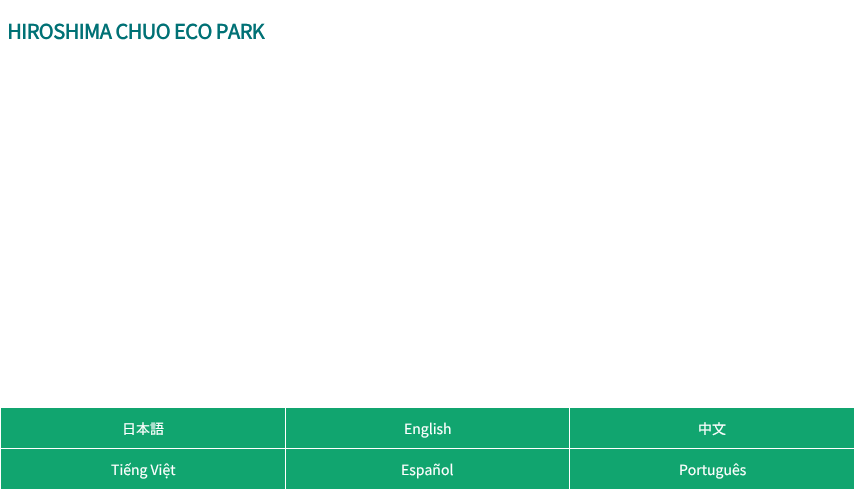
#include "include/core/SkBlurTypes.h"
#include "include/core/SkCanvas.h"
#include "include/core/SkData.h"
#include "include/core/SkFont.h"
#include "include/core/SkFontMgr.h"
#include "include/core/SkImage.h"
#include "include/core/SkMaskFilter.h"
#include "include/core/SkPaint.h"
#include "include/core/SkPathBuilder.h"
#include "include/core/SkTextBlob.h"
#include "include/effects/SkDashPathEffect.h"
#include "include/effects/SkGradientShader.h"
#include "include/utils/SkParsePath.h"

extern sk_sp<SkFontMgr> fontMgr;

void draw(SkCanvas* canvas) {
  SkPaint p;
  p.setAntiAlias(true);
  auto spacedText = [&](const char* s, float x, float y, const SkFont& font, const SkPaint& ink, float letter, float word) {
    std::vector<SkGlyphID> glyphs(font.countText(s, strlen(s), SkTextEncoding::kUTF8));
    std::vector<float> xs(glyphs.size());
    font.textToGlyphs(s, strlen(s), SkTextEncoding::kUTF8, glyphs);
    font.getXPos(glyphs, xs, x);
    float extra = 0;
    for (size_t i = 0; i < glyphs.size(); i++) {
      xs[i] += extra;
      extra += letter + word * (glyphs[i] == font.unicharToGlyph(' '));
    }
    canvas->drawTextBlob(SkTextBlob::MakeFromPosHGlyphs(glyphs, xs, y, font), 0, 0, ink);
  };
  canvas->clear(SK_ColorWHITE);
  p.setColor(SkColorSetRGB(17, 165, 111));
  canvas->drawRect(SkRect::MakeLTRB(1, 408, 285, 448), p);
  canvas->drawRect(SkRect::MakeLTRB(286, 408, 569, 448), p);
  canvas->drawRect(SkRect::MakeLTRB(570, 408, 854, 448), p);
  canvas->drawRect(SkRect::MakeLTRB(1, 449, 285, 489), p);
  canvas->drawRect(SkRect::MakeLTRB(286, 449, 569, 489), p);
  canvas->drawRect(SkRect::MakeLTRB(570, 449, 854, 489), p);
  SkFont font1(fontMgr->matchFamilyStyle("Noto Sans JP", SkFontStyle::Bold()), 20);
  font1.setSubpixel(true);
  p.setColor(SkColorSetRGB(0, 113, 117));
  spacedText("HIROSHIMA CHUO ECO PARK", 7, 39, font1, p, -0.5f, 0);
  SkFont font2(fontMgr->matchFamilyStyle("Noto Sans JP", SkFontStyle(100, SkFontStyle::kNormal_Width, SkFontStyle::kUpright_Slant)), 14);
  font2.setSubpixel(true);
  p.setColor(SK_ColorWHITE);
  canvas->drawString("日本語", 122, 434, font2, p);
  canvas->drawString("English", 404, 434, font2, p);
  canvas->drawString("中文", 698, 434, font2, p);
  canvas->drawString("Tiếng Việt", 111, 475, font2, p);
  canvas->drawString("Español", 401, 475, font2, p);
  canvas->drawString("Português", 679, 475, font2, p);
}
